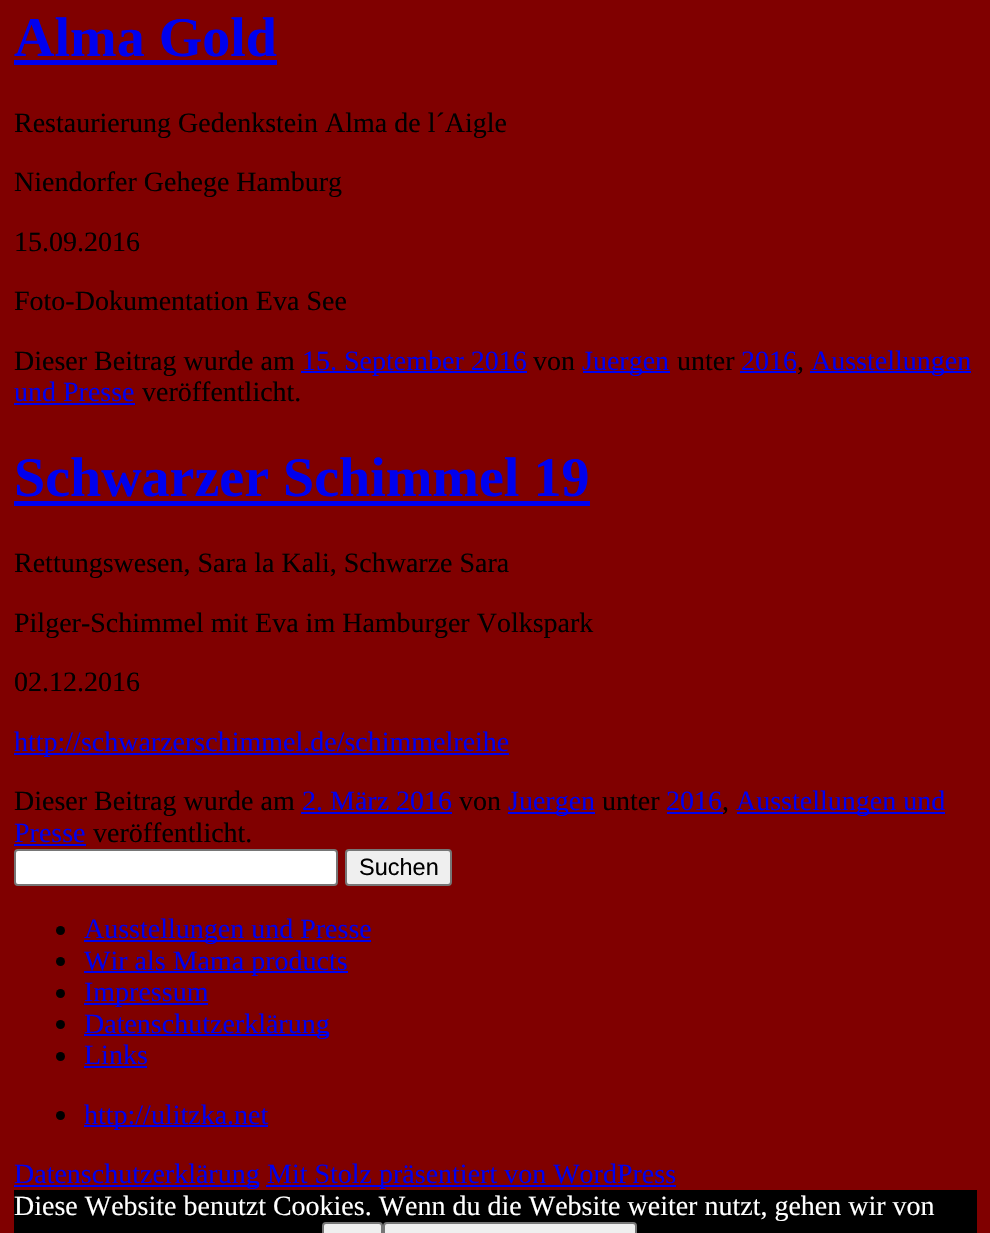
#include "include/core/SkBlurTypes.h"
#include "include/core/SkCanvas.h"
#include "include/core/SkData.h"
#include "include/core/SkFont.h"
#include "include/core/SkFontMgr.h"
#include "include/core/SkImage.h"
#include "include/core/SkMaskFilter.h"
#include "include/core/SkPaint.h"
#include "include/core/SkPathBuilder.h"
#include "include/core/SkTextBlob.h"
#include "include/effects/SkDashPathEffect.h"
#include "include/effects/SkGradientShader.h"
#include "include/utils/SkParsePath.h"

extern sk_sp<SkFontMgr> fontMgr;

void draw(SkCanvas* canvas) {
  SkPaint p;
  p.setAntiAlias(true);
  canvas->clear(SkColorSetRGB(128, 0, 0));
  p.setColor(SkColorSetRGB(0, 0, 238));
  canvas->drawRect(SkRect::MakeLTRB(14, 60, 277, 65), p);
  canvas->drawRect(SkRect::MakeLTRB(301, 371, 527, 373), p);
  canvas->drawRect(SkRect::MakeLTRB(583, 371, 670, 373), p);
  canvas->drawRect(SkRect::MakeLTRB(740, 371, 796, 373), p);
  canvas->drawRect(SkRect::MakeLTRB(810, 371, 971, 373), p);
  canvas->drawRect(SkRect::MakeLTRB(14, 403, 135, 405), p);
  canvas->drawRect(SkRect::MakeLTRB(14, 501, 590, 506), p);
  canvas->drawRect(SkRect::MakeLTRB(14, 753, 509, 755), p);
  canvas->drawRect(SkRect::MakeLTRB(301, 812, 452, 814), p);
  canvas->drawRect(SkRect::MakeLTRB(508, 812, 595, 814), p);
  canvas->drawRect(SkRect::MakeLTRB(667, 812, 723, 814), p);
  canvas->drawRect(SkRect::MakeLTRB(737, 812, 945, 814), p);
  canvas->drawRect(SkRect::MakeLTRB(14, 844, 86, 846), p);
  p.setColor(SK_ColorWHITE);
  canvas->drawRoundRect(SkRect::MakeLTRB(15, 850, 337, 885), 3, 3, p);
  p.setStyle(SkPaint::kStroke_Style);
  p.setStrokeWidth(2);
  p.setColor(SkColorSetRGB(118, 118, 118));
  canvas->drawRoundRect(SkRect::MakeLTRB(15, 850, 337, 885), 3, 3, p);
  p.setStyle(SkPaint::kFill_Style);
  p.setColor(SkColorSetRGB(239, 239, 239));
  canvas->drawRoundRect(SkRect::MakeLTRB(346, 850, 451, 885), 3, 3, p);
  p.setStyle(SkPaint::kStroke_Style);
  p.setColor(SkColorSetRGB(118, 118, 118));
  canvas->drawRoundRect(SkRect::MakeLTRB(346, 850, 451, 885), 3, 3, p);
  p.setStyle(SkPaint::kFill_Style);
  p.setColor(SK_ColorBLACK);
  canvas->drawCircle(60.5f, 930.5f, 4.5f, p);
  p.setColor(SkColorSetRGB(0, 0, 238));
  canvas->drawRect(SkRect::MakeLTRB(84, 940, 371, 942), p);
  p.setColor(SK_ColorBLACK);
  canvas->drawCircle(60.5f, 961.5f, 4.5f, p);
  p.setColor(SkColorSetRGB(0, 0, 238));
  canvas->drawRect(SkRect::MakeLTRB(84, 971, 348, 973), p);
  p.setColor(SK_ColorBLACK);
  canvas->drawCircle(60.5f, 993.5f, 4.5f, p);
  p.setColor(SkColorSetRGB(0, 0, 238));
  canvas->drawRect(SkRect::MakeLTRB(84, 1003, 208, 1005), p);
  p.setColor(SK_ColorBLACK);
  canvas->drawCircle(60.5f, 1024.5f, 4.5f, p);
  p.setColor(SkColorSetRGB(0, 0, 238));
  canvas->drawRect(SkRect::MakeLTRB(84, 1034, 329, 1036), p);
  p.setColor(SK_ColorBLACK);
  canvas->drawCircle(60.5f, 1056.5f, 4.5f, p);
  p.setColor(SkColorSetRGB(0, 0, 238));
  canvas->drawRect(SkRect::MakeLTRB(84, 1066, 147, 1068), p);
  p.setColor(SK_ColorBLACK);
  canvas->drawCircle(60.5f, 1115.5f, 4.5f, p);
  p.setColor(SkColorSetRGB(0, 0, 238));
  canvas->drawRect(SkRect::MakeLTRB(84, 1125, 268, 1127), p);
  canvas->drawRect(SkRect::MakeLTRB(14, 1185, 259, 1187), p);
  canvas->drawRect(SkRect::MakeLTRB(266, 1185, 676, 1187), p);
  p.setColor(SK_ColorBLACK);
  canvas->drawRect(SkRect::MakeLTRB(14, 1190, 977, 1233), p);
  p.setColor(SkColorSetRGB(239, 239, 239));
  canvas->drawRoundRect(SkRect::MakeLTRB(323, 1223, 382, 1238), 3, 3, p);
  p.setStyle(SkPaint::kStroke_Style);
  p.setColor(SkColorSetRGB(118, 118, 118));
  canvas->drawRoundRect(SkRect::MakeLTRB(323, 1223, 382, 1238), 3, 3, p);
  p.setStyle(SkPaint::kFill_Style);
  p.setColor(SkColorSetRGB(239, 239, 239));
  canvas->drawRoundRect(SkRect::MakeLTRB(384, 1223, 636, 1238), 3, 3, p);
  p.setStyle(SkPaint::kStroke_Style);
  p.setColor(SkColorSetRGB(118, 118, 118));
  canvas->drawRoundRect(SkRect::MakeLTRB(384, 1223, 636, 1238), 3, 3, p);
  SkFont font1(fontMgr->matchFamilyStyle("Liberation Serif", SkFontStyle::Bold()), 56);
  font1.setSubpixel(true);
  p.setStyle(SkPaint::kFill_Style);
  p.setColor(SkColorSetRGB(0, 0, 238));
  canvas->drawString("Alma Gold", 14, 56, font1, p);
  SkFont font2(fontMgr->matchFamilyStyle("Liberation Serif", SkFontStyle::Normal()), 28);
  font2.setSubpixel(true);
  p.setColor(SK_ColorBLACK);
  canvas->drawString("Restaurierung Gedenkstein Alma de l´Aigle", 14, 132, font2, p);
  canvas->drawString("Niendorfer Gehege Hamburg", 14, 191, font2, p);
  canvas->drawString("15.09.2016", 14, 251, font2, p);
  canvas->drawString("Foto-Dokumentation Eva See", 14, 310, font2, p);
  canvas->drawString("Dieser Beitrag wurde am", 14, 370, font2, p);
  p.setColor(SkColorSetRGB(0, 0, 238));
  canvas->drawString("15. September 2016", 302, 370, font2, p);
  p.setColor(SK_ColorBLACK);
  canvas->drawString("von", 533, 370, font2, p);
  p.setColor(SkColorSetRGB(0, 0, 238));
  canvas->drawString("Juergen", 582, 370, font2, p);
  p.setColor(SK_ColorBLACK);
  canvas->drawString("unter", 677, 370, font2, p);
  p.setColor(SkColorSetRGB(0, 0, 238));
  canvas->drawString("2016", 741, 370, font2, p);
  p.setColor(SK_ColorBLACK);
  canvas->drawString(",", 797, 370, font2, p);
  p.setColor(SkColorSetRGB(0, 0, 238));
  canvas->drawString("Ausstellungen", 811, 370, font2, p);
  canvas->drawString("und Presse", 14, 401, font2, p);
  p.setColor(SK_ColorBLACK);
  canvas->drawString("veröffentlicht.", 142, 401, font2, p);
  p.setColor(SkColorSetRGB(0, 0, 238));
  canvas->drawString("Schwarzer Schimmel 19", 14, 496, font1, p);
  p.setColor(SK_ColorBLACK);
  canvas->drawString("Rettungswesen, Sara la Kali, Schwarze Sara", 14, 572, font2, p);
  canvas->drawString("Pilger-Schimmel mit Eva im Hamburger Volkspark", 14, 632, font2, p);
  canvas->drawString("02.12.2016", 14, 691, font2, p);
  p.setColor(SkColorSetRGB(0, 0, 238));
  canvas->drawString("http://schwarzerschimmel.de/schimmelreihe", 14, 751, font2, p);
  p.setColor(SK_ColorBLACK);
  canvas->drawString("Dieser Beitrag wurde am", 14, 810, font2, p);
  p.setColor(SkColorSetRGB(0, 0, 238));
  canvas->drawString("2. März 2016", 302, 810, font2, p);
  p.setColor(SK_ColorBLACK);
  canvas->drawString("von", 459, 810, font2, p);
  p.setColor(SkColorSetRGB(0, 0, 238));
  canvas->drawString("Juergen", 508, 810, font2, p);
  p.setColor(SK_ColorBLACK);
  canvas->drawString("unter", 602, 810, font2, p);
  p.setColor(SkColorSetRGB(0, 0, 238));
  canvas->drawString("2016", 666, 810, font2, p);
  p.setColor(SK_ColorBLACK);
  canvas->drawString(",", 722, 810, font2, p);
  p.setColor(SkColorSetRGB(0, 0, 238));
  canvas->drawString("Ausstellungen und", 736, 810, font2, p);
  canvas->drawString("Presse", 14, 842, font2, p);
  p.setColor(SK_ColorBLACK);
  canvas->drawString("veröffentlicht.", 93, 842, font2, p);
  SkFont font3(fontMgr->matchFamilyStyle("Liberation Sans", SkFontStyle::Normal()), 23.5f);
  font3.setSubpixel(true);
  canvas->drawString("Suchen", 359, 875, font3, p);
  p.setColor(SkColorSetRGB(0, 0, 238));
  canvas->drawString("Ausstellungen und Presse", 84, 938, font2, p);
  canvas->drawString("Wir als Mama products", 84, 970, font2, p);
  canvas->drawString("Impressum", 84, 1001, font2, p);
  canvas->drawString("Datenschutzerklärung", 84, 1033, font2, p);
  canvas->drawString("Links", 84, 1064, font2, p);
  canvas->drawString("http://ulitzka.net", 84, 1124, font2, p);
  canvas->drawString("Datenschutzerklärung", 14, 1183, font2, p);
  canvas->drawString("Mit Stolz präsentiert von WordPress", 267, 1183, font2, p);
  p.setColor(SK_ColorWHITE);
  canvas->drawString("Diese Website benutzt Cookies. Wenn du die Website weiter nutzt, gehen wir von", 14, 1215, font2, p);
}
